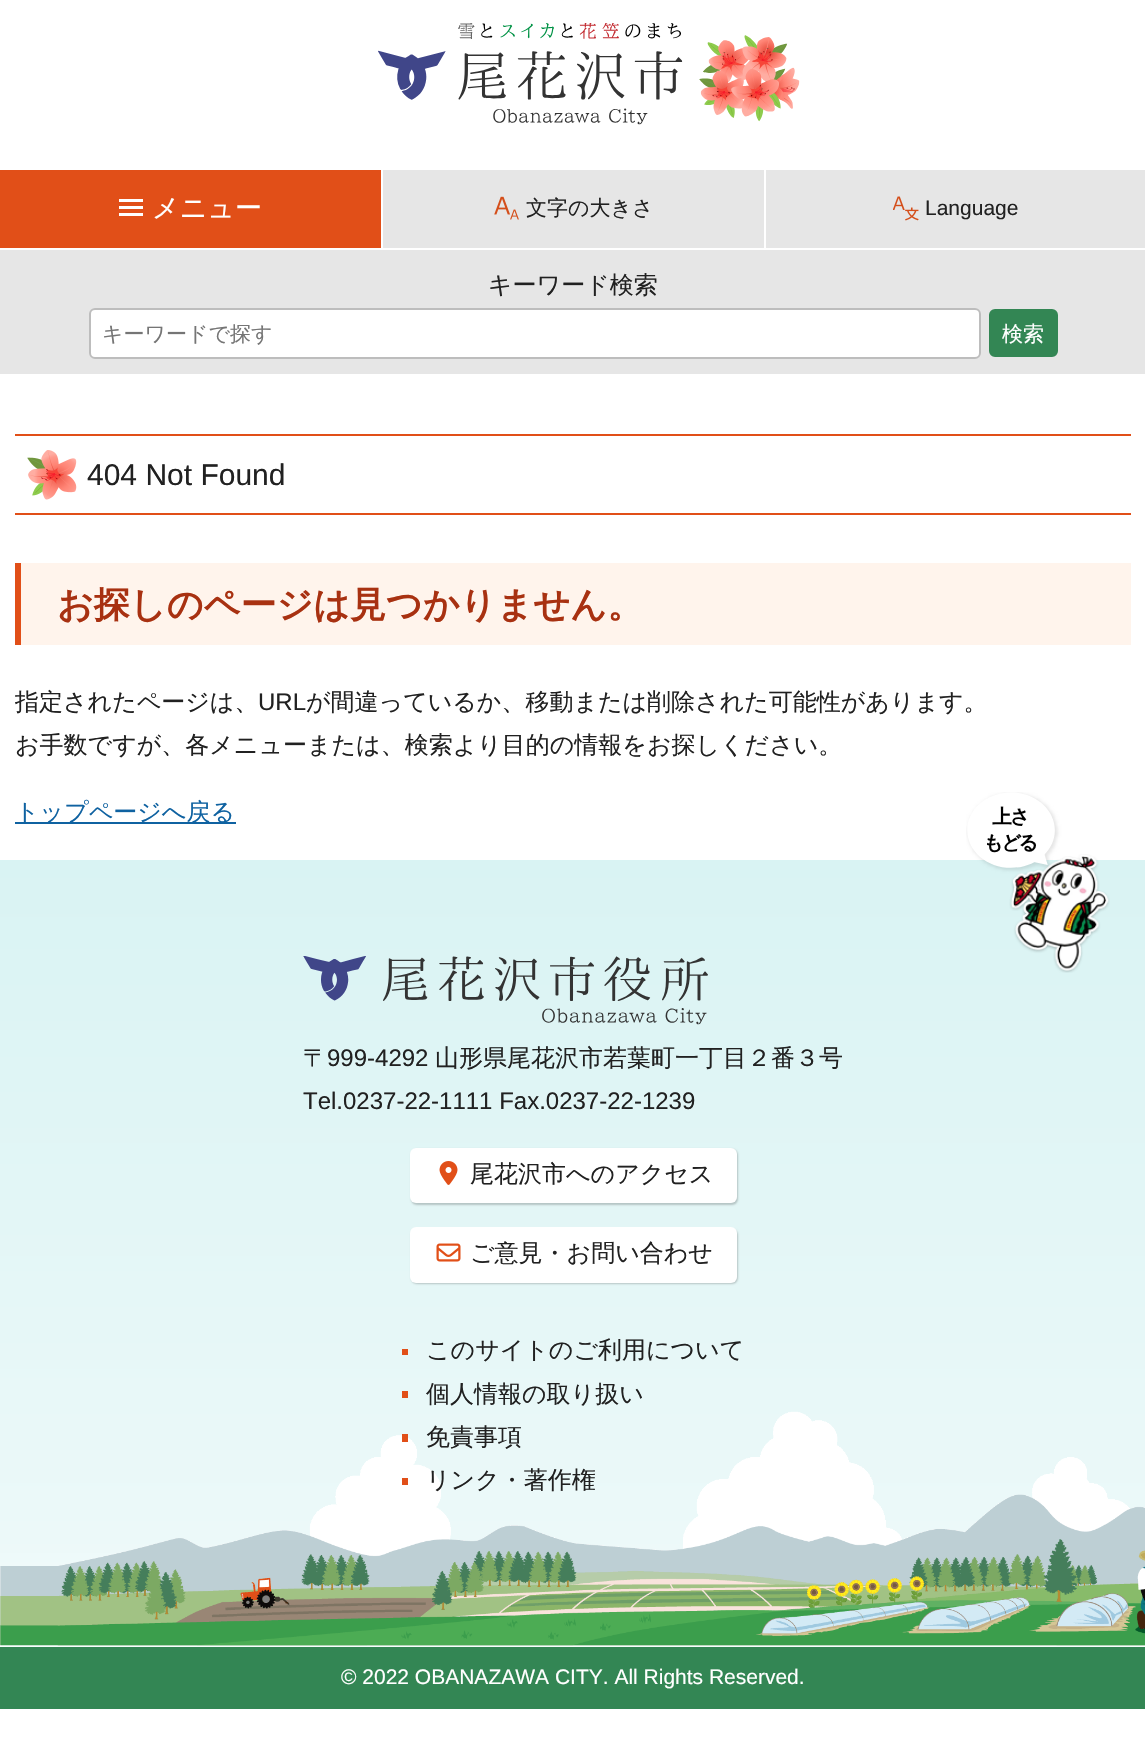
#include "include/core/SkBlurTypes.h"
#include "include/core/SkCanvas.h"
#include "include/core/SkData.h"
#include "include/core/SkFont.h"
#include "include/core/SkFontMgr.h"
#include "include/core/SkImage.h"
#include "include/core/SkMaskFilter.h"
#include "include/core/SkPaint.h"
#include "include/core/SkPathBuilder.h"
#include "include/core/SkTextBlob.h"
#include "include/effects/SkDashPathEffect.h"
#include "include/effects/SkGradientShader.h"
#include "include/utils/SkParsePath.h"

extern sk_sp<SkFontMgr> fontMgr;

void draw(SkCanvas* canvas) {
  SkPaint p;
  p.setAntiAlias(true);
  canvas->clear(SK_ColorWHITE);
  canvas->drawImageRect(SkImages::DeferredFromEncodedData(SkData::MakeFromFileName("images/1.png")), SkRect::MakeLTRB(378, 23, 800, 125), SkSamplingOptions());
  p.setColor(SkColorSetRGB(230, 230, 230));
  canvas->drawRect(SkRect::MakeLTRB(0, 170, 1145, 374), p);
  p.setColor(SkColorSetRGB(225, 79, 24));
  canvas->drawRect(SkRect::MakeLTRB(0, 170, 381, 248), p);
  p.setColor(SK_ColorWHITE);
  canvas->drawRect(SkRect::MakeLTRB(119, 199, 143, 202), p);
  canvas->drawRect(SkRect::MakeLTRB(119, 206, 143, 209), p);
  canvas->drawRect(SkRect::MakeLTRB(119, 213, 143, 216), p);
  canvas->drawRect(SkRect::MakeLTRB(381, 170, 383, 248), p);
  canvas->drawImageRect(SkImages::DeferredFromEncodedData(SkData::MakeFromFileName("images/2.png")), SkRect::MakeLTRB(494, 196, 519, 220), SkSamplingOptions());
  canvas->drawRect(SkRect::MakeLTRB(764, 170, 766, 248), p);
  canvas->drawImageRect(SkImages::DeferredFromEncodedData(SkData::MakeFromFileName("images/3.png")), SkRect::MakeLTRB(893, 196, 919, 221), SkSamplingOptions());
  canvas->drawRect(SkRect::MakeLTRB(0, 248, 1145, 250), p);
  canvas->drawRoundRect(SkRect::MakeLTRB(89, 308, 981, 359), 6, 6, p);
  p.setStyle(SkPaint::kStroke_Style);
  p.setStrokeWidth(2);
  p.setColor(SkColorSetARGB(66, 0, 0, 0));
  canvas->drawRoundRect(SkRect::MakeLTRB(90, 309, 980, 358), 5, 5, p);
  p.setStyle(SkPaint::kFill_Style);
  p.setColor(SkColorSetRGB(51, 134, 84));
  canvas->drawRoundRect(SkRect::MakeLTRB(990, 310, 1057, 356), 5, 5, p);
  p.setStyle(SkPaint::kStroke_Style);
  canvas->drawRoundRect(SkRect::MakeLTRB(990, 310, 1057, 356), 5, 5, p);
  canvas->drawImageRect(SkImages::DeferredFromEncodedData(SkData::MakeFromFileName("images/4.png")), SkRect::MakeLTRB(27, 450, 77, 500), SkSamplingOptions());
  p.setStyle(SkPaint::kFill_Style);
  p.setColor(SkColorSetRGB(225, 79, 24));
  canvas->drawRect(SkRect::MakeLTRB(15, 434, 1131, 436), p);
  canvas->drawRect(SkRect::MakeLTRB(15, 513, 1131, 515), p);
  p.setColor(SkColorSetRGB(255, 244, 236));
  canvas->drawRect(SkRect::MakeLTRB(21, 563, 1131, 645), p);
  p.setColor(SkColorSetRGB(225, 79, 24));
  canvas->drawRect(SkRect::MakeLTRB(15, 563, 21, 645), p);
  p.setColor(SkColorSetRGB(15, 98, 161));
  canvas->drawRect(SkRect::MakeLTRB(15, 822, 236, 824), p);
  {
    const SkColor colors[] = {SkColorSetRGB(217, 243, 243), SkColorSetRGB(236, 249, 249), SK_ColorWHITE};
    const float stops[] = {0, 0.8f, 1};
    const SkPoint ends[] = {{573, 860}, {573, 1709}};
    p.setShader(SkGradientShader::MakeLinear(ends, colors, stops, 3, SkTileMode::kClamp));
    p.setAlpha(255);
  }
  canvas->drawRect(SkRect::MakeLTRB(0, 860, 1145, 1647), p);
  canvas->drawImageRect(SkImages::DeferredFromEncodedData(SkData::MakeFromFileName("images/5.png")), SkRect::MakeLTRB(966, 792, 1110, 973), SkSamplingOptions());
  canvas->drawImageRect(SkImages::DeferredFromEncodedData(SkData::MakeFromFileName("images/6.png")), SkRect::MakeLTRB(0, 1411, 1145, 1646), SkSamplingOptions());
  canvas->drawImageRect(SkImages::DeferredFromEncodedData(SkData::MakeFromFileName("images/7.png")), SkRect::MakeLTRB(303, 956, 708, 1025), SkSamplingOptions());
  p.setShader(nullptr);
  p.setColor(SkColorSetARGB(51, 0, 0, 0));
  p.setMaskFilter(SkMaskFilter::MakeBlur(kNormal_SkBlurStyle, 1));
  canvas->drawRoundRect(SkRect::MakeLTRB(411, 1149, 738, 1205), 6, 6, p);
  p.setMaskFilter(nullptr);
  p.setColor(SK_ColorWHITE);
  canvas->drawRoundRect(SkRect::MakeLTRB(410, 1148, 737, 1203), 6, 6, p);
  canvas->drawImageRect(SkImages::DeferredFromEncodedData(SkData::MakeFromFileName("images/8.png")), SkRect::MakeLTRB(439, 1161, 458, 1185), SkSamplingOptions());
  p.setColor(SkColorSetARGB(51, 0, 0, 0));
  p.setMaskFilter(SkMaskFilter::MakeBlur(kNormal_SkBlurStyle, 1));
  canvas->drawRoundRect(SkRect::MakeLTRB(411, 1229, 738, 1284), 6, 6, p);
  p.setMaskFilter(nullptr);
  p.setColor(SK_ColorWHITE);
  canvas->drawRoundRect(SkRect::MakeLTRB(410, 1227, 737, 1283), 6, 6, p);
  canvas->drawImageRect(SkImages::DeferredFromEncodedData(SkData::MakeFromFileName("images/9.png")), SkRect::MakeLTRB(436, 1243, 461, 1262), SkSamplingOptions());
  p.setColor(SkColorSetRGB(225, 79, 24));
  canvas->drawRect(SkRect::MakeLTRB(402, 1349, 408, 1355), p);
  canvas->drawRect(SkRect::MakeLTRB(402, 1391, 408, 1398), p);
  canvas->drawRect(SkRect::MakeLTRB(402, 1434, 408, 1442), p);
  canvas->drawRect(SkRect::MakeLTRB(402, 1478, 408, 1485), p);
  p.setColor(SkColorSetRGB(51, 134, 84));
  canvas->drawRect(SkRect::MakeLTRB(0, 1647, 1145, 1709), p);
  SkFont font1(fontMgr->matchFamilyStyle("WenQuanYi Zen Hei", SkFontStyle(500, SkFontStyle::kNormal_Width, SkFontStyle::kUpright_Slant)), 27);
  font1.setSubpixel(true);
  p.setColor(SK_ColorWHITE);
  canvas->drawString("メニュー", 152, 217, font1, p);
  SkFont font2(fontMgr->matchFamilyStyle("WenQuanYi Zen Hei", SkFontStyle(500, SkFontStyle::kNormal_Width, SkFontStyle::kUpright_Slant)), 21);
  font2.setSubpixel(true);
  p.setColor(SkColorSetRGB(33, 33, 33));
  canvas->drawString("文字の大きさ", 526, 215, font2, p);
  SkFont font3(fontMgr->matchFamilyStyle("Liberation Sans", SkFontStyle::Normal()), 21);
  font3.setSubpixel(true);
  canvas->drawString("Language", 925, 215, font3, p);
  SkFont font4(fontMgr->matchFamilyStyle("WenQuanYi Zen Hei", SkFontStyle(500, SkFontStyle::kNormal_Width, SkFontStyle::kUpright_Slant)), 24);
  font4.setSubpixel(true);
  canvas->drawString("キーワード検索", 488, 293, font4, p);
  p.setColor(SkColorSetRGB(117, 117, 117));
  canvas->drawString("キーワードで探す", 102, 341, font2, p);
  p.setColor(SK_ColorWHITE);
  canvas->drawString("検索", 1002, 341, font2, p);
  SkFont font5(fontMgr->matchFamilyStyle("Liberation Sans", SkFontStyle::Normal()), 30);
  font5.setSubpixel(true);
  p.setColor(SkColorSetRGB(33, 33, 33));
  canvas->drawString("404 Not Found", 87, 485, font5, p);
  SkFont font6(fontMgr->matchFamilyStyle("WenQuanYi Zen Hei", SkFontStyle::Bold()), 36);
  font6.setSubpixel(true);
  p.setColor(SkColorSetRGB(168, 49, 17));
  canvas->drawString("お探しのページは見つかりません。", 57, 617, font6, p);
  p.setColor(SkColorSetRGB(33, 33, 33));
  canvas->drawString("指定されたページは、", 15, 710, font4, p);
  SkFont font7(fontMgr->matchFamilyStyle("Liberation Sans", SkFontStyle::Normal()), 24);
  font7.setSubpixel(true);
  canvas->drawString("URL", 258, 710, font7, p);
  canvas->drawString("が間違っているか、移動または削除された可能性があります。", 306, 710, font4, p);
  canvas->drawString("お手数ですが、各メニューまたは、検索より目的の情報をお探しください。", 15, 753, font4, p);
  p.setColor(SkColorSetRGB(15, 98, 161));
  canvas->drawString("トップページへ戻る", 15, 820, font4, p);
  p.setColor(SkColorSetRGB(33, 33, 33));
  canvas->drawString("〒", 303, 1066, font4, p);
  canvas->drawString("999-4292", 327, 1066, font7, p);
  canvas->drawString("山形県尾花沢市若葉町一丁目２番３号", 435, 1066, font4, p);
  canvas->drawString("Tel.0237-22-1111 Fax.0237-22-1239", 303, 1109, font7, p);
  canvas->drawString("尾花沢市へのアクセス", 470, 1182, font4, p);
  canvas->drawString("ご意見・お問い合わせ", 470, 1261, font4, p);
  canvas->drawString("このサイトのご利用について", 426, 1358, font4, p);
  canvas->drawString("個人情報の取り扱い", 426, 1402, font4, p);
  canvas->drawString("免責事項", 426, 1445, font4, p);
  canvas->drawString("リンク・著作権", 426, 1488, font4, p);
  p.setColor(SK_ColorWHITE);
  canvas->drawString("© 2022 OBANAZAWA CITY. All Rights Reserved.", 341, 1684, font3, p);
}
